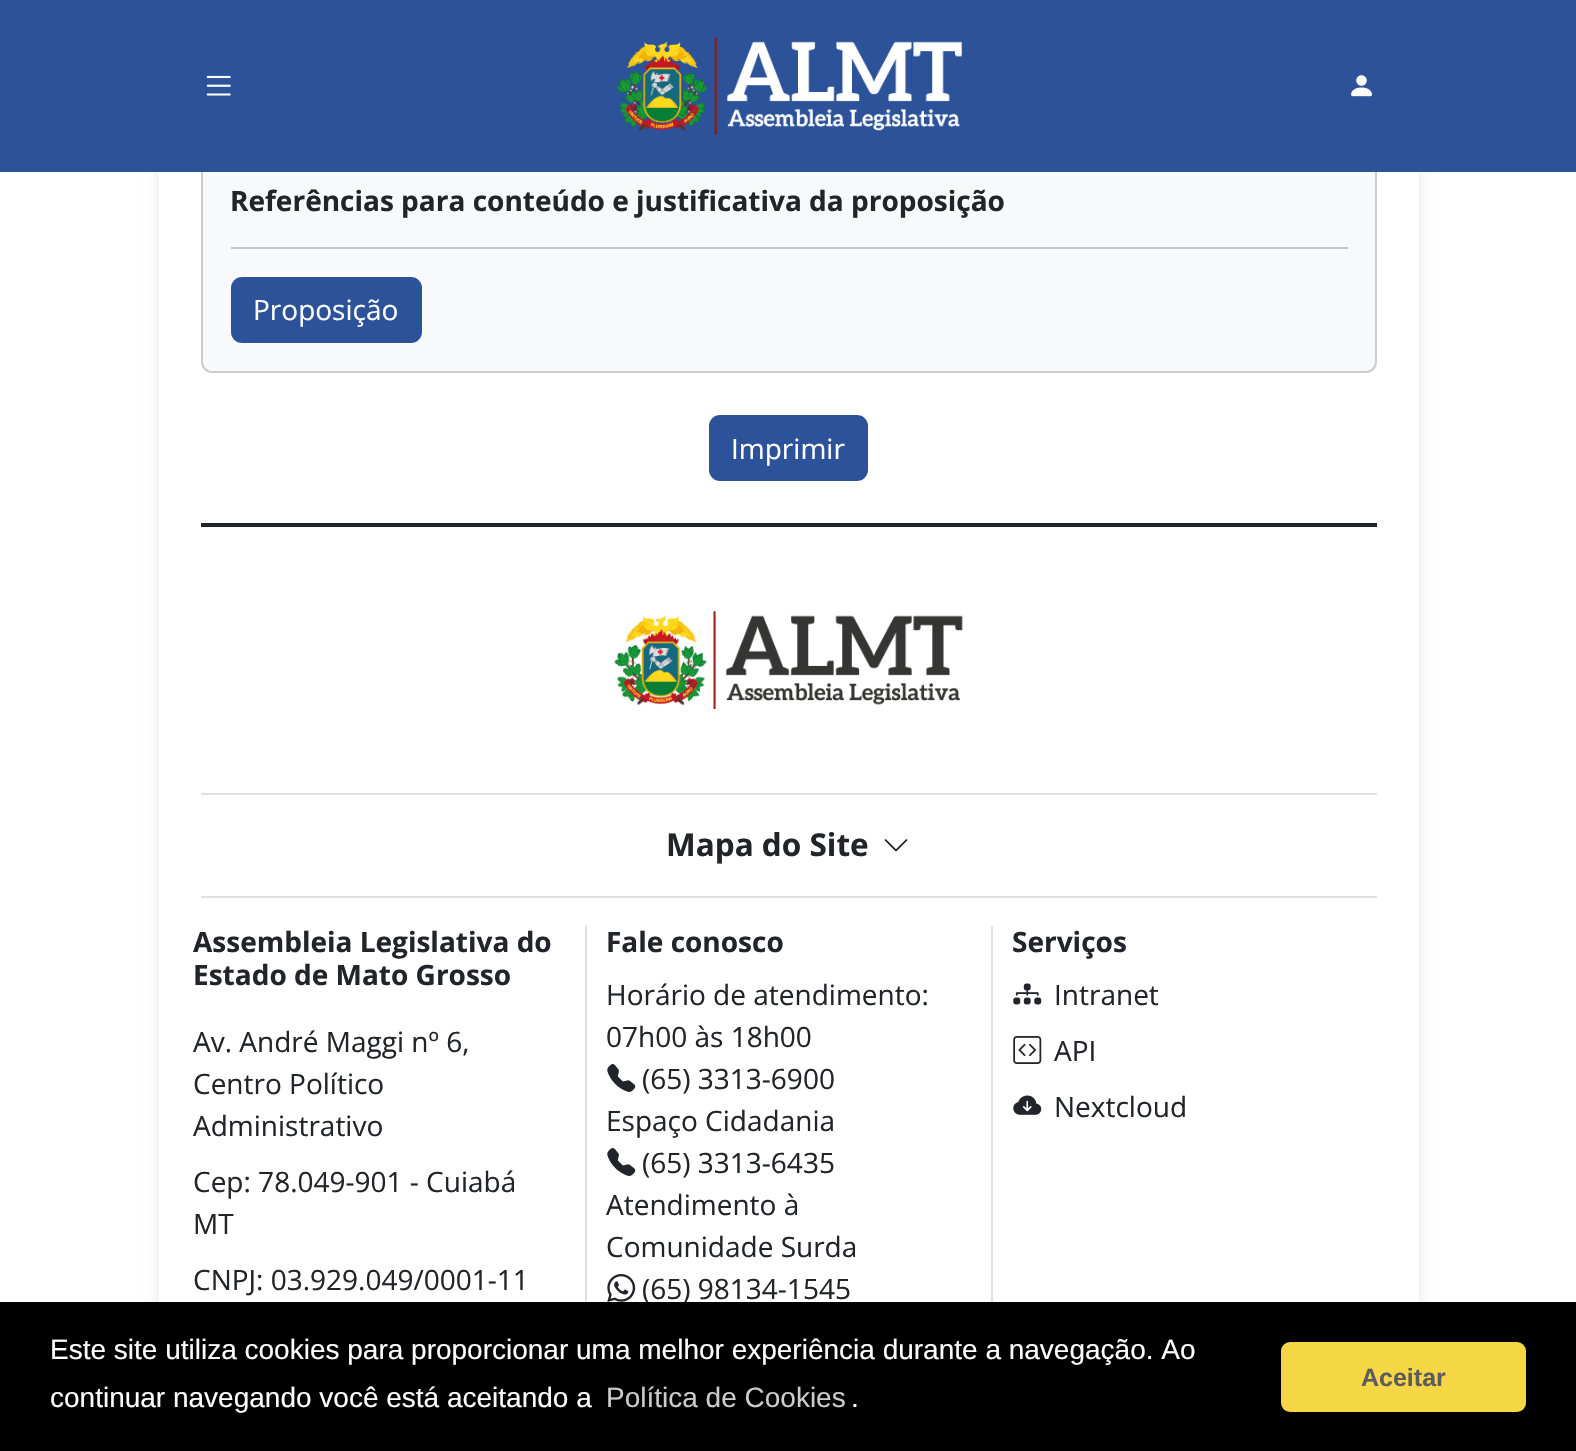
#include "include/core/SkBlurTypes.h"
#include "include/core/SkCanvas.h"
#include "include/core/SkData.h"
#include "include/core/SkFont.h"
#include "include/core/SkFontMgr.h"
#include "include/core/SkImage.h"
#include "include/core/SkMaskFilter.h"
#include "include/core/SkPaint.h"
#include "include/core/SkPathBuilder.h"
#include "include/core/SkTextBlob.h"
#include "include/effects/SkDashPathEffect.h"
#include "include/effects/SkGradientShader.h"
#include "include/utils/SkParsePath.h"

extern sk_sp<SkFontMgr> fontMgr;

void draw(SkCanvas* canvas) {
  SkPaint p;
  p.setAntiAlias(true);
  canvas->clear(SK_ColorWHITE);
  canvas->save();
  canvas->clipPath(SkPathBuilder(SkPathFillType::kEvenOdd).moveTo(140, 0).lineTo(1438, 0).lineTo(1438, 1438).lineTo(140, 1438).close().moveTo(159, -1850).lineTo(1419, -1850).lineTo(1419, 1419).lineTo(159, 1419).close().detach(), true);
  p.setColor(SkColorSetARGB(26, 0, 0, 0));
  p.setMaskFilter(SkMaskFilter::MakeBlur(kNormal_SkBlurStyle, 6));
  canvas->drawRect(SkRect::MakeLTRB(159, -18, 1419, 1419), p);
  p.setMaskFilter(nullptr);
  canvas->restore();
  p.setColor(SkColorSetRGB(248, 249, 250));
  canvas->drawRoundRect(SkRect::MakeLTRB(202, 157, 1376, 372), 10, 10, p);
  p.setStyle(SkPaint::kStroke_Style);
  p.setStrokeWidth(2);
  p.setColor(SkColorSetRGB(204, 205, 206));
  canvas->drawRoundRect(SkRect::MakeLTRB(202, 157, 1376, 372), 10, 10, p);
  p.setStyle(SkPaint::kFill_Style);
  p.setColor(SkColorSetRGB(44, 82, 153));
  canvas->drawRect(SkRect::MakeLTRB(0, 0, 1576, 172), p);
  canvas->drawImageRect(SkImages::DeferredFromEncodedData(SkData::MakeFromFileName("images/1.png")), SkRect::MakeLTRB(206, 75, 231, 96), SkSamplingOptions());
  canvas->drawImageRect(SkImages::DeferredFromEncodedData(SkData::MakeFromFileName("images/2.png")), SkRect::MakeLTRB(616, 37, 963, 135), SkSamplingOptions());
  canvas->drawImageRect(SkImages::DeferredFromEncodedData(SkData::MakeFromFileName("images/3.png")), SkRect::MakeLTRB(1351, 75, 1372, 97), SkSamplingOptions());
  p.setColor(SkColorSetRGB(194, 196, 198));
  canvas->drawRect(SkRect::MakeLTRB(231, 247, 1348, 249), p);
  p.setColor(SkColorSetRGB(44, 82, 153));
  canvas->drawRoundRect(SkRect::MakeLTRB(232, 278, 421, 342), 10, 10, p);
  p.setStyle(SkPaint::kStroke_Style);
  canvas->drawRoundRect(SkRect::MakeLTRB(232, 278, 421, 342), 10, 10, p);
  p.setStyle(SkPaint::kFill_Style);
  canvas->drawRoundRect(SkRect::MakeLTRB(710, 416, 867, 480), 10, 10, p);
  p.setStyle(SkPaint::kStroke_Style);
  canvas->drawRoundRect(SkRect::MakeLTRB(710, 416, 867, 480), 10, 10, p);
  p.setStyle(SkPaint::kFill_Style);
  p.setColor(SkColorSetRGB(33, 37, 41));
  canvas->drawRect(SkRect::MakeLTRB(201, 523, 1377, 527), p);
  canvas->drawImageRect(SkImages::DeferredFromEncodedData(SkData::MakeFromFileName("images/4.png")), SkRect::MakeLTRB(614, 611, 963, 709), SkSamplingOptions());
  p.setColor(SkColorSetRGB(222, 226, 230));
  canvas->drawRect(SkRect::MakeLTRB(201, 793, 1377, 795), p);
  canvas->drawRect(SkRect::MakeLTRB(201, 896, 1377, 898), p);
  canvas->drawImageRect(SkImages::DeferredFromEncodedData(SkData::MakeFromFileName("images/5.png")), SkRect::MakeLTRB(884, 839, 908, 852), SkSamplingOptions());
  canvas->drawRect(SkRect::MakeLTRB(585, 926, 587, 1309), p);
  canvas->drawRect(SkRect::MakeLTRB(991, 926, 993, 1309), p);
  canvas->drawImageRect(SkImages::DeferredFromEncodedData(SkData::MakeFromFileName("images/6.png")), SkRect::MakeLTRB(607, 1064, 636, 1092), SkSamplingOptions());
  canvas->drawImageRect(SkImages::DeferredFromEncodedData(SkData::MakeFromFileName("images/6.png")), SkRect::MakeLTRB(607, 1148, 636, 1176), SkSamplingOptions());
  canvas->drawImageRect(SkImages::DeferredFromEncodedData(SkData::MakeFromFileName("images/7.png")), SkRect::MakeLTRB(607, 1274, 636, 1302), SkSamplingOptions());
  canvas->drawImageRect(SkImages::DeferredFromEncodedData(SkData::MakeFromFileName("images/8.png")), SkRect::MakeLTRB(1013, 983, 1042, 1005), SkSamplingOptions());
  canvas->drawImageRect(SkImages::DeferredFromEncodedData(SkData::MakeFromFileName("images/9.png")), SkRect::MakeLTRB(1013, 1036, 1042, 1064), SkSamplingOptions());
  canvas->drawImageRect(SkImages::DeferredFromEncodedData(SkData::MakeFromFileName("images/10.png")), SkRect::MakeLTRB(1013, 1095, 1042, 1115), SkSamplingOptions());
  SkFont font1(fontMgr->matchFamilyStyle("Open Sans", SkFontStyle::Bold()), 28);
  font1.setSubpixel(true);
  p.setColor(SkColorSetRGB(33, 37, 41));
  canvas->drawString("Referências para conteúdo e justificativa da proposição", 230, 211, font1, p);
  SkFont font2(fontMgr->matchFamilyStyle("Open Sans", SkFontStyle::Normal()), 28);
  font2.setSubpixel(true);
  p.setColor(SK_ColorWHITE);
  canvas->drawString("Proposição", 253, 320, font2, p);
  canvas->drawString("Imprimir", 731, 459, font2, p);
  SkFont font3(fontMgr->matchFamilyStyle("Open Sans", SkFontStyle::Bold()), 31.5f);
  font3.setSubpixel(true);
  p.setColor(SkColorSetRGB(33, 37, 41));
  canvas->drawString("Mapa do Site", 666, 856, font3, p);
  canvas->drawString("Assembleia Legislativa do", 193, 952, font1, p);
  canvas->drawString("Estado de Mato Grosso", 193, 985, font1, p);
  canvas->drawString("Av. André Maggi nº 6,", 193, 1052, font2, p);
  canvas->drawString("Centro Político", 193, 1094, font2, p);
  canvas->drawString("Administrativo", 193, 1136, font2, p);
  canvas->drawString("Cep: 78.049-901 - Cuiabá", 193, 1192, font2, p);
  canvas->drawString("MT", 193, 1234, font2, p);
  canvas->drawString("CNPJ: 03.929.049/0001-11", 193, 1290, font2, p);
  canvas->drawString("Fale conosco", 606, 952, font1, p);
  canvas->drawString("Horário de atendimento:", 606, 1005, font2, p);
  canvas->drawString("07h00 às 18h00", 606, 1047, font2, p);
  canvas->drawString("(65) 3313-6900", 642, 1089, font2, p);
  canvas->drawString("Espaço Cidadania", 606, 1131, font2, p);
  canvas->drawString("(65) 3313-6435", 642, 1173, font2, p);
  canvas->drawString("Atendimento à", 606, 1215, font2, p);
  canvas->drawString("Comunidade Surda", 606, 1257, font2, p);
  canvas->drawString("(65) 98134-1545", 642, 1299, font2, p);
  canvas->drawString("Serviços", 1012, 952, font1, p);
  canvas->drawString("Intranet", 1054, 1005, font2, p);
  canvas->drawString("API", 1054, 1061, font2, p);
  canvas->drawString("Nextcloud", 1054, 1117, font2, p);
  p.setColor(SK_ColorBLACK);
  canvas->drawRect(SkRect::MakeLTRB(0, 1302, 1576, 1451), p);
  SkFont font4(fontMgr->matchFamilyStyle("Liberation Sans", SkFontStyle::Normal()), 28);
  font4.setSubpixel(true);
  p.setColor(SK_ColorWHITE);
  canvas->drawString("Este site utiliza cookies para proporcionar uma melhor experiência durante a navegação. Ao", 50, 1359, font4, p);
  canvas->drawString("continuar navegando você está aceitando a", 50, 1407, font4, p);
  p.setColor(SkColorSetRGB(204, 204, 204));
  canvas->drawString("Política de Cookies", 606, 1407, font4, p);
  p.setColor(SK_ColorWHITE);
  canvas->drawString(".", 851, 1407, font4, p);
  p.setColor(SkColorSetRGB(245, 214, 69));
  canvas->drawRoundRect(SkRect::MakeLTRB(1281, 1342, 1526, 1412), 9, 9, p);
  SkFont font5(fontMgr->matchFamilyStyle("Liberation Sans", SkFontStyle::Bold()), 25);
  font5.setSubpixel(true);
  p.setColor(SkColorSetRGB(92, 92, 92));
  canvas->drawString("Aceitar", 1361, 1386, font5, p);
}
